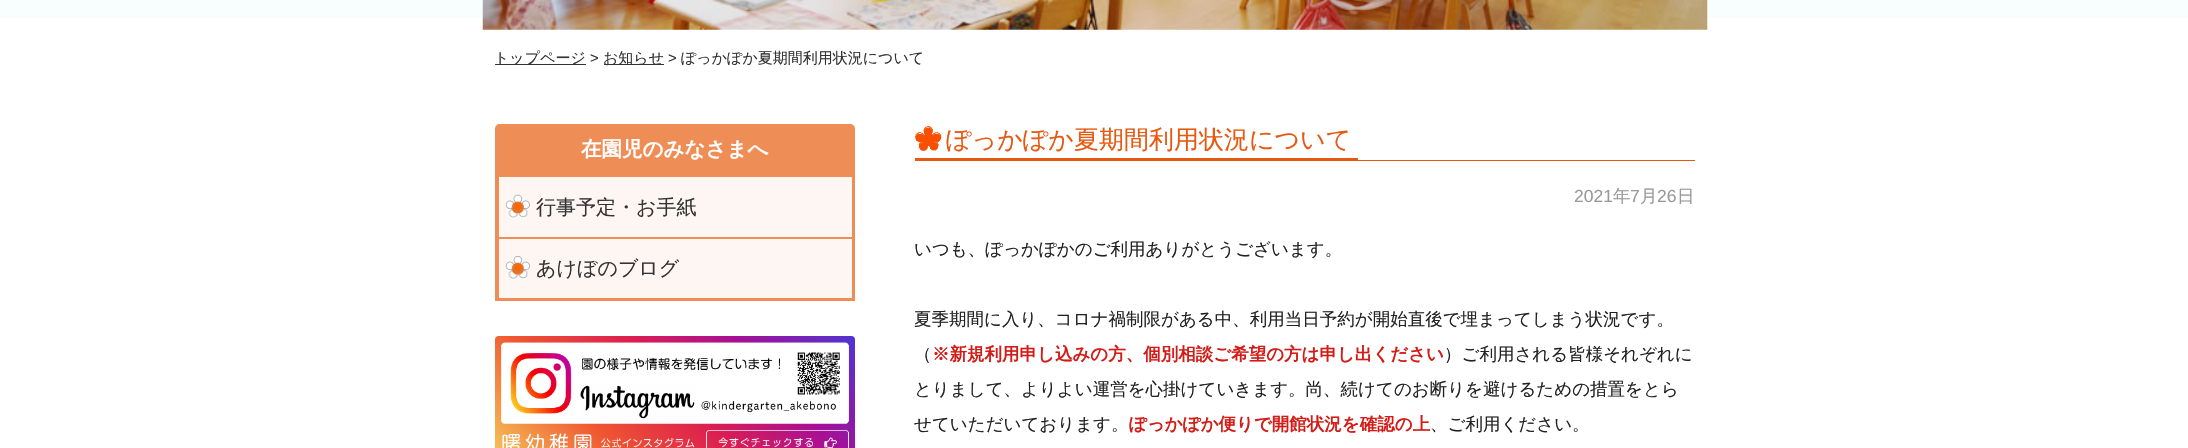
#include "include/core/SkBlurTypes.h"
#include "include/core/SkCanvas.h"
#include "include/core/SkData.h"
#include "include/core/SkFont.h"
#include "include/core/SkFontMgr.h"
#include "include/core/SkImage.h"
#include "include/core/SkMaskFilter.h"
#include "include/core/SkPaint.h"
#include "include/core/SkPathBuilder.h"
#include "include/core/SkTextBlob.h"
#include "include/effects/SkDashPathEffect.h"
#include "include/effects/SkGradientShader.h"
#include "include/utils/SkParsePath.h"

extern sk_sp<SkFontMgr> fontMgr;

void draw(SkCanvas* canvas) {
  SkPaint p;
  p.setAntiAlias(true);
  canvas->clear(SK_ColorWHITE);
  p.setColor(SkColorSetRGB(248, 253, 254));
  canvas->drawRect(SkRect::MakeLTRB(0, 0, 2188, 18), p);
  p.setColor(SK_ColorWHITE);
  canvas->drawRect(SkRect::MakeLTRB(483, 0, 1708, 18), p);
  canvas->drawImageRect(SkImages::DeferredFromEncodedData(SkData::MakeFromFileName("images/1.png")), SkRect::MakeLTRB(482, 0, 1708, 30), SkSamplingOptions());
  p.setColor(SkColorSetRGB(51, 51, 51));
  canvas->drawRect(SkRect::MakeLTRB(495, 64, 586, 65), p);
  canvas->drawRect(SkRect::MakeLTRB(604, 64, 664, 65), p);
  p.setColor(SkColorSetRGB(238, 142, 86));
  canvas->drawPath(SkPathBuilder().moveTo(500, 124).lineTo(850, 124).cubicTo(853, 124, 855, 126, 855, 129).lineTo(855, 174).lineTo(495, 174).lineTo(495, 129).cubicTo(495, 126, 497, 124, 500, 124).close().detach(), p);
  p.setStyle(SkPaint::kStroke_Style);
  p.setStrokeWidth(3);
  canvas->drawRect(SkRect::MakeLTRB(496.5f, 175.5f, 853.5f, 299.5f), p);
  p.setStyle(SkPaint::kFill_Style);
  p.setColor(SkColorSetRGB(253, 246, 243));
  canvas->drawRect(SkRect::MakeLTRB(499, 177, 852, 237), p);
  canvas->drawImageRect(SkImages::DeferredFromEncodedData(SkData::MakeFromFileName("images/2.png")), SkRect::MakeLTRB(505, 194, 530, 219), SkSamplingOptions());
  p.setStyle(SkPaint::kStroke_Style);
  p.setStrokeWidth(1);
  p.setColor(SkColorSetRGB(238, 142, 86));
  canvas->drawRect(SkRect::MakeLTRB(498.5f, 176.5f, 852.5f, 237.5f), p);
  p.setStyle(SkPaint::kFill_Style);
  p.setColor(SkColorSetRGB(253, 246, 243));
  canvas->drawRect(SkRect::MakeLTRB(499, 239, 852, 298), p);
  canvas->drawImageRect(SkImages::DeferredFromEncodedData(SkData::MakeFromFileName("images/3.png")), SkRect::MakeLTRB(505, 256, 530, 280), SkSamplingOptions());
  p.setStyle(SkPaint::kStroke_Style);
  p.setColor(SkColorSetRGB(238, 142, 86));
  canvas->drawRect(SkRect::MakeLTRB(498.5f, 238.5f, 852.5f, 298.5f), p);
  canvas->drawImageRect(SkImages::DeferredFromEncodedData(SkData::MakeFromFileName("images/4.png")), SkRect::MakeLTRB(495, 336, 855, 448), SkSamplingOptions());
  canvas->drawImageRect(SkImages::DeferredFromEncodedData(SkData::MakeFromFileName("images/5.png")), SkRect::MakeLTRB(915, 126, 942, 151), SkSamplingOptions());
  p.setStyle(SkPaint::kFill_Style);
  p.setColor(SkColorSetRGB(230, 89, 17));
  canvas->drawRect(SkRect::MakeLTRB(1358, 160, 1695, 161), p);
  canvas->drawRect(SkRect::MakeLTRB(915, 158, 1358, 161), p);
  SkFont font1(fontMgr->matchFamilyStyle("WenQuanYi Zen Hei", SkFontStyle(500, SkFontStyle::kNormal_Width, SkFontStyle::kUpright_Slant)), 15);
  font1.setSubpixel(true);
  p.setColor(SkColorSetRGB(51, 51, 51));
  canvas->drawString("トップページ", 494, 63, font1, p);
  SkFont font2(fontMgr->matchFamilyStyle("Liberation Sans", SkFontStyle::Normal()), 15);
  font2.setSubpixel(true);
  canvas->drawString(">", 590, 63, font2, p);
  canvas->drawString("お知らせ", 603, 63, font1, p);
  canvas->drawString(">", 668, 63, font2, p);
  canvas->drawString("ぽっかぽか夏期間利用状況について", 681, 63, font1, p);
  SkFont font3(fontMgr->matchFamilyStyle("WenQuanYi Zen Hei", SkFontStyle::Bold()), 20.5f);
  font3.setSubpixel(true);
  p.setColor(SK_ColorWHITE);
  canvas->drawString("在園児のみなさまへ", 581, 156, font3, p);
  SkFont font4(fontMgr->matchFamilyStyle("WenQuanYi Zen Hei", SkFontStyle(500, SkFontStyle::kNormal_Width, SkFontStyle::kUpright_Slant)), 20);
  font4.setSubpixel(true);
  p.setColor(SkColorSetRGB(51, 51, 51));
  canvas->drawString("行事予定・お手紙", 536, 214, font4, p);
  canvas->drawString("あけぼのブログ", 536, 275, font4, p);
  SkFont font5(fontMgr->matchFamilyStyle("WenQuanYi Zen Hei", SkFontStyle(500, SkFontStyle::kNormal_Width, SkFontStyle::kUpright_Slant)), 25);
  font5.setSubpixel(true);
  p.setColor(SkColorSetRGB(230, 89, 17));
  canvas->drawString("ぽっかぽか夏期間利用状況について", 946, 148, font5, p);
  SkFont font6(fontMgr->matchFamilyStyle("Liberation Sans", SkFontStyle::Normal()), 17.5f);
  font6.setSubpixel(true);
  p.setColor(SkColorSetRGB(153, 153, 153));
  canvas->drawString("2021", 1574, 202, font6, p);
  SkFont font7(fontMgr->matchFamilyStyle("WenQuanYi Zen Hei", SkFontStyle(500, SkFontStyle::kNormal_Width, SkFontStyle::kUpright_Slant)), 17.5f);
  font7.setSubpixel(true);
  canvas->drawString("年", 1613, 202, font7, p);
  canvas->drawString("7", 1630, 202, font6, p);
  canvas->drawString("月", 1640, 202, font7, p);
  canvas->drawString("26", 1657, 202, font6, p);
  canvas->drawString("日", 1677, 202, font7, p);
  p.setColor(SkColorSetRGB(34, 34, 34));
  canvas->drawString("いつも、ぽっかぽかのご利用ありがとうございます。", 914, 255, font7, p);
  canvas->drawString("夏季期間に入り、コロナ禍制限がある中、利用当日予約が開始直後で埋まってしまう状況です。", 914, 325, font7, p);
  canvas->drawString("（", 914, 360, font7, p);
  SkFont font8(fontMgr->matchFamilyStyle("WenQuanYi Zen Hei", SkFontStyle::Bold()), 17.5f);
  font8.setSubpixel(true);
  p.setColor(SkColorSetRGB(211, 28, 23));
  canvas->drawString("※新規利用申し込みの方、個別相談ご希望の方は申し出ください", 932, 360, font8, p);
  p.setColor(SkColorSetRGB(34, 34, 34));
  canvas->drawString("）ご利用される皆様それぞれに", 1444, 360, font7, p);
  canvas->drawString("とりまして、よりよい運営を心掛けていきます。尚、続けてのお断りを避けるための措置をとら", 914, 395, font7, p);
  canvas->drawString("せていただいております。", 914, 430, font7, p);
  p.setColor(SkColorSetRGB(211, 28, 23));
  canvas->drawString("ぽっかぽか便りで開館状況を確認の上", 1129, 430, font8, p);
  p.setColor(SkColorSetRGB(34, 34, 34));
  canvas->drawString("、ご利用ください。", 1430, 430, font7, p);
}
